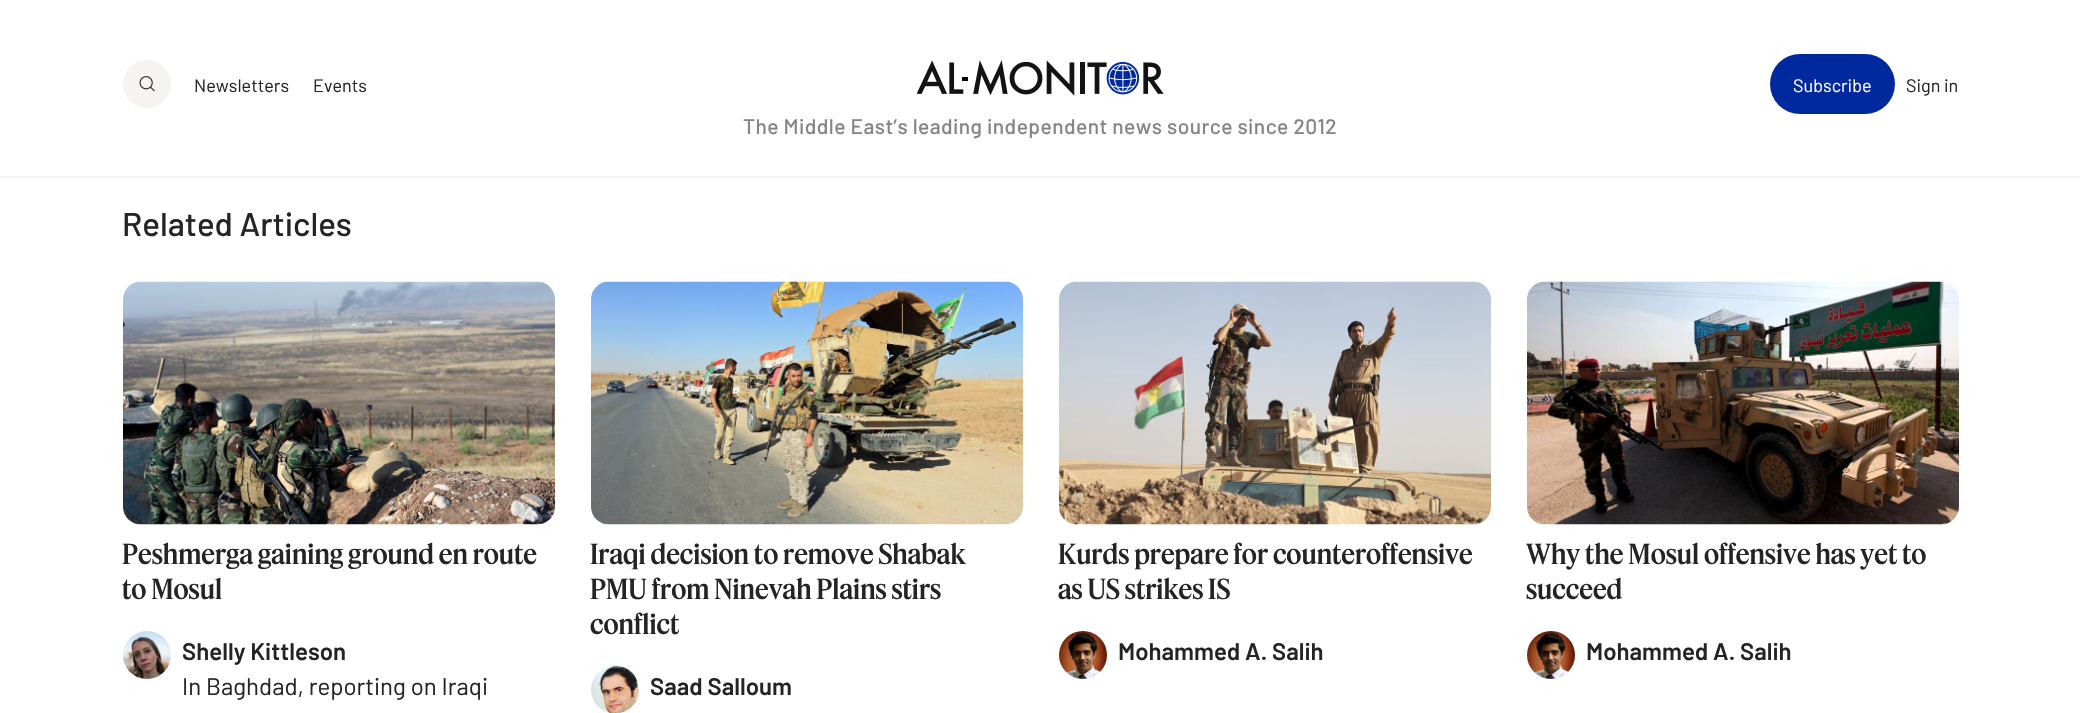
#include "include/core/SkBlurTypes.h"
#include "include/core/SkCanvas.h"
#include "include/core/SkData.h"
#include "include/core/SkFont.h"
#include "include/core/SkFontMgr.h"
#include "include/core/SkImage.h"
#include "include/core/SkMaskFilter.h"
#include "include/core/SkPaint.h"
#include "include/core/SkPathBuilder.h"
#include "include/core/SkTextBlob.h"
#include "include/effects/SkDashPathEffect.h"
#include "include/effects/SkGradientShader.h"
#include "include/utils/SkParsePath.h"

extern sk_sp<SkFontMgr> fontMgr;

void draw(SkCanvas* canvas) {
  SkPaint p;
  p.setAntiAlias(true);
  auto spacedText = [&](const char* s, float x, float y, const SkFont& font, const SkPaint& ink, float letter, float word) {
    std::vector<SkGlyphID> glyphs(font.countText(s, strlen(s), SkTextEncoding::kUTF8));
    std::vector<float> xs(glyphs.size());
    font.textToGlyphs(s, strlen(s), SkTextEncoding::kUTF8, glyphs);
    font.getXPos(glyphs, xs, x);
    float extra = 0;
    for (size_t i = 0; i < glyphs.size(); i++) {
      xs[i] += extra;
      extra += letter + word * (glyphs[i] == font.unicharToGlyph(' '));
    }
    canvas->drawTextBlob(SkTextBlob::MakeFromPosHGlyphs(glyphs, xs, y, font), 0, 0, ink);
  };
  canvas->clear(SK_ColorWHITE);
  p.setColor(SkColorSetRGB(246, 244, 241));
  canvas->drawCircle(147, 84, 24, p);
  canvas->drawImageRect(SkImages::DeferredFromEncodedData(SkData::MakeFromFileName("images/1.png")), SkRect::MakeLTRB(139, 76, 155, 92), SkSamplingOptions());
  canvas->drawImageRect(SkImages::DeferredFromEncodedData(SkData::MakeFromFileName("images/2.png")), SkRect::MakeLTRB(917, 60, 1164, 96), SkSamplingOptions());
  p.setColor(SkColorSetRGB(0, 41, 157));
  canvas->drawRoundRect(SkRect::MakeLTRB(1770, 54, 1895, 114), 30, 30, p);
  p.setColor(SkColorSetRGB(246, 244, 241));
  canvas->drawRect(SkRect::MakeLTRB(0, 176, 2080, 178), p);
  canvas->drawImageRect(SkImages::DeferredFromEncodedData(SkData::MakeFromFileName("images/3.png")), SkRect::MakeLTRB(123, 281, 555, 525), SkSamplingOptions());
  canvas->drawImageRect(SkImages::DeferredFromEncodedData(SkData::MakeFromFileName("images/4.png")), SkRect::MakeLTRB(123, 631, 171, 679), SkSamplingOptions());
  canvas->drawImageRect(SkImages::DeferredFromEncodedData(SkData::MakeFromFileName("images/5.png")), SkRect::MakeLTRB(591, 281, 1023, 525), SkSamplingOptions());
  canvas->drawImageRect(SkImages::DeferredFromEncodedData(SkData::MakeFromFileName("images/6.png")), SkRect::MakeLTRB(591, 665, 639, 713), SkSamplingOptions());
  canvas->drawImageRect(SkImages::DeferredFromEncodedData(SkData::MakeFromFileName("images/7.png")), SkRect::MakeLTRB(1059, 281, 1491, 525), SkSamplingOptions());
  canvas->drawImageRect(SkImages::DeferredFromEncodedData(SkData::MakeFromFileName("images/8.png")), SkRect::MakeLTRB(1059, 631, 1107, 679), SkSamplingOptions());
  canvas->drawImageRect(SkImages::DeferredFromEncodedData(SkData::MakeFromFileName("images/9.png")), SkRect::MakeLTRB(1527, 281, 1959, 525), SkSamplingOptions());
  canvas->drawImageRect(SkImages::DeferredFromEncodedData(SkData::MakeFromFileName("images/10.png")), SkRect::MakeLTRB(1527, 631, 1575, 679), SkSamplingOptions());
  SkFont font1(fontMgr->matchFamilyStyle("Barlow", SkFontStyle::Normal()), 18);
  font1.setSubpixel(true);
  p.setColor(SkColorSetRGB(36, 36, 36));
  canvas->drawString("Newsletters", 194, 92, font1, p);
  canvas->drawString("Events", 313, 92, font1, p);
  p.setColor(SK_ColorWHITE);
  canvas->drawString("Subscribe", 1793, 92, font1, p);
  p.setColor(SkColorSetRGB(36, 36, 36));
  canvas->drawString("Sign in", 1906, 92, font1, p);
  SkFont font2(fontMgr->matchFamilyStyle("Barlow", SkFontStyle(500, SkFontStyle::kNormal_Width, SkFontStyle::kUpright_Slant)), 21);
  font2.setSubpixel(true);
  p.setColor(SkColorSetRGB(132, 132, 132));
  spacedText("The Middle Eastʼs leading independent news source since 2012", 743, 134, font2, p, 0.42f, 0);
  SkFont font3(fontMgr->matchFamilyStyle("Barlow", SkFontStyle(500, SkFontStyle::kNormal_Width, SkFontStyle::kUpright_Slant)), 33);
  font3.setSubpixel(true);
  p.setColor(SkColorSetRGB(36, 36, 36));
  canvas->drawString("Related Articles", 122, 236, font3, p);
  SkFont font4(fontMgr->matchFamilyStyle("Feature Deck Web", SkFontStyle(500, SkFontStyle::kNormal_Width, SkFontStyle::kUpright_Slant)), 27);
  font4.setSubpixel(true);
  canvas->drawString("Peshmerga gaining ground en route", 122, 564, font4, p);
  canvas->drawString("to Mosul", 122, 599, font4, p);
  SkFont font5(fontMgr->matchFamilyStyle("Barlow", SkFontStyle(600, SkFontStyle::kNormal_Width, SkFontStyle::kUpright_Slant)), 24);
  font5.setSubpixel(true);
  canvas->drawString("Shelly Kittleson", 182, 660, font5, p);
  SkFont font6(fontMgr->matchFamilyStyle("Barlow", SkFontStyle::Normal()), 24);
  font6.setSubpixel(true);
  canvas->drawString("In Baghdad, reporting on Iraqi", 182, 695, font6, p);
  canvas->drawString("Iraqi decision to remove Shabak", 590, 564, font4, p);
  canvas->drawString("PMU from Ninevah Plains stirs", 590, 599, font4, p);
  canvas->drawString("conflict", 590, 634, font4, p);
  canvas->drawString("Saad Salloum", 650, 695, font5, p);
  canvas->drawString("Kurds prepare for counteroffensive", 1058, 564, font4, p);
  canvas->drawString("as US strikes IS", 1058, 599, font4, p);
  canvas->drawString("Mohammed A. Salih", 1118, 660, font5, p);
  canvas->drawString("Why the Mosul offensive has yet to", 1526, 564, font4, p);
  canvas->drawString("succeed", 1526, 599, font4, p);
  canvas->drawString("Mohammed A. Salih", 1586, 660, font5, p);
}
